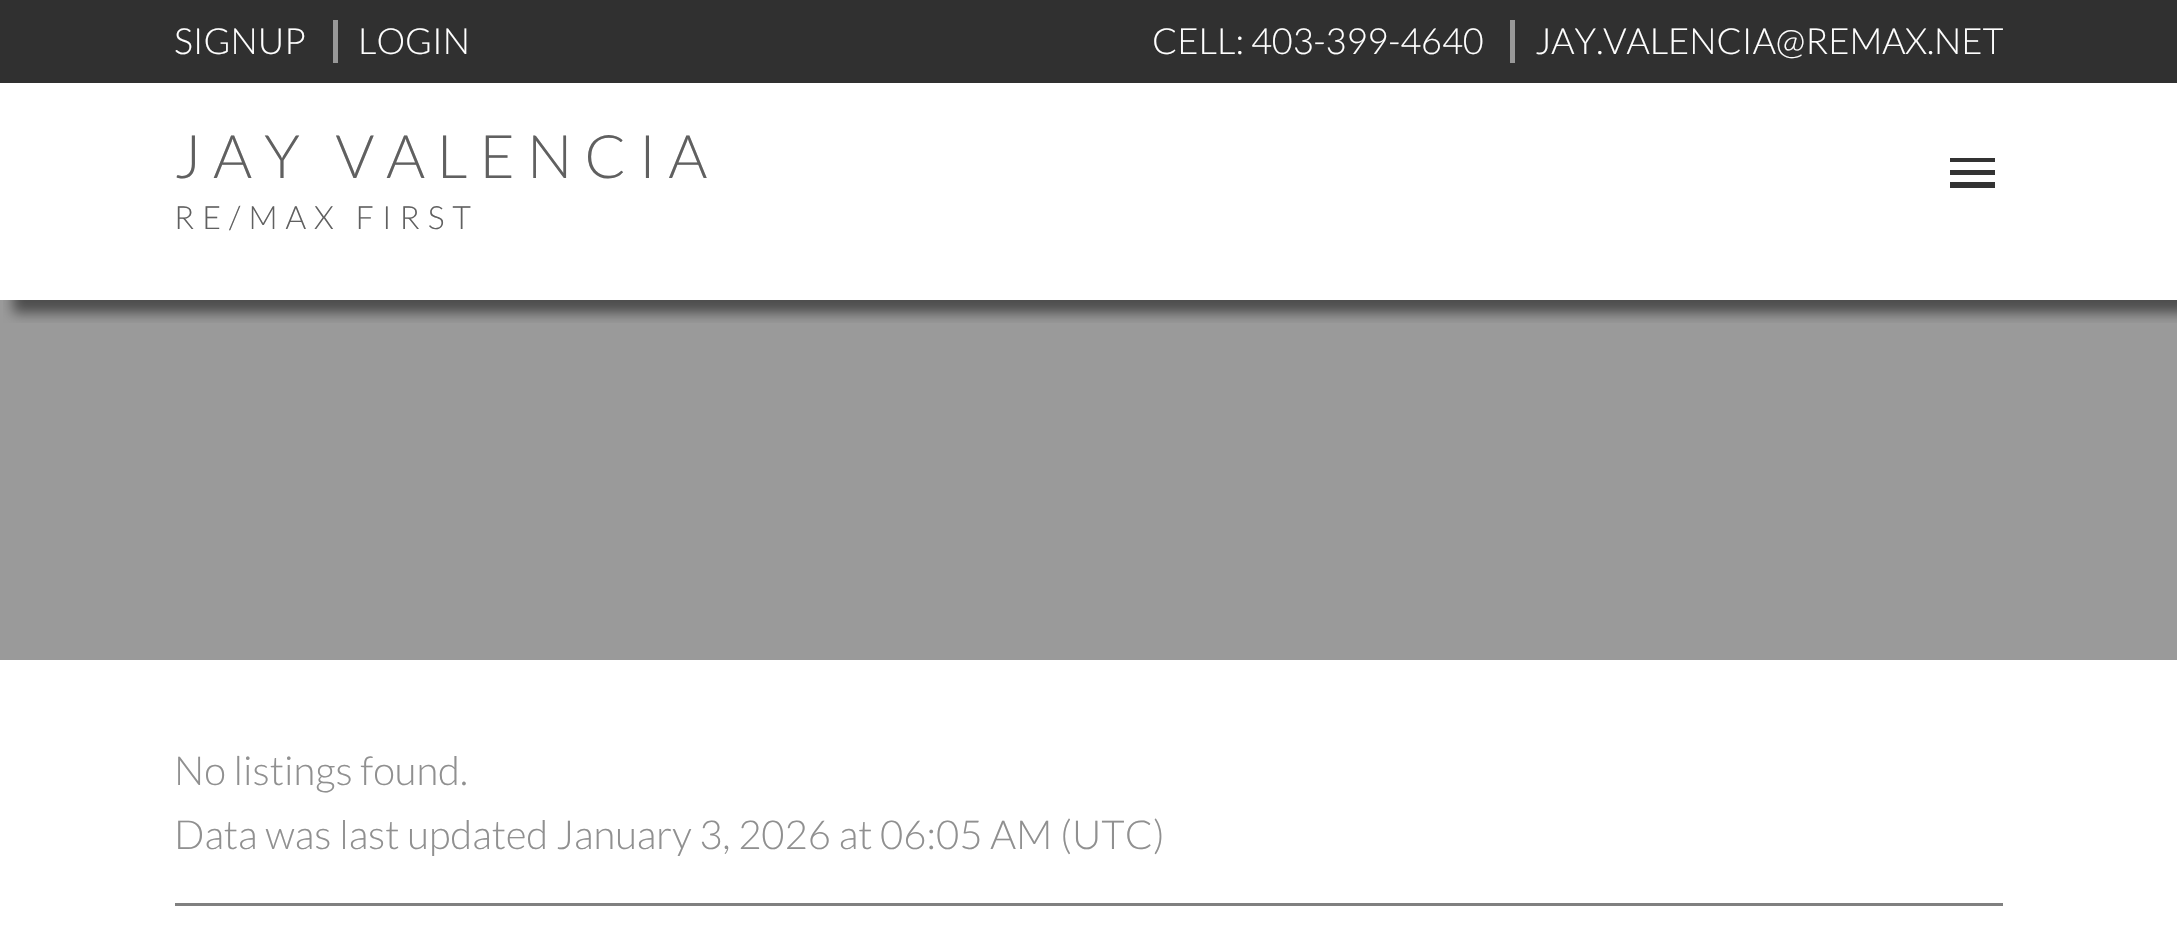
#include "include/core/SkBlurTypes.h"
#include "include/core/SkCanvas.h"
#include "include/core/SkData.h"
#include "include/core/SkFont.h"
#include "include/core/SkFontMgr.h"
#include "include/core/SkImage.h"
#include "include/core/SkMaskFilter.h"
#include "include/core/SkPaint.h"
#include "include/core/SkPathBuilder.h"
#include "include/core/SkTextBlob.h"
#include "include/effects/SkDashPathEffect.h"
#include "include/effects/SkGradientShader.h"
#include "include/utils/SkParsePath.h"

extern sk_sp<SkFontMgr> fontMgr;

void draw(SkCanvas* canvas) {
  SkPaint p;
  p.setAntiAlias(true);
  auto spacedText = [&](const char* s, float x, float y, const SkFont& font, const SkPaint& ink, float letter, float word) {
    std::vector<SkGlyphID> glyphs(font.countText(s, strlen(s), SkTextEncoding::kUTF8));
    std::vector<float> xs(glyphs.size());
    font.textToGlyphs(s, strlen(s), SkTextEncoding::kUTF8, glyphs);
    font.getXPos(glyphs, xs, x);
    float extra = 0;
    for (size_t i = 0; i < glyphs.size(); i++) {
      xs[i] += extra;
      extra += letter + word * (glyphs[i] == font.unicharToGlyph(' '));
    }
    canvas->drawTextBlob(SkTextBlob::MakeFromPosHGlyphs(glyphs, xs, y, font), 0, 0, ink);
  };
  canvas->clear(SK_ColorWHITE);
  p.setColor(SkColorSetRGB(154, 154, 154));
  canvas->drawRect(SkRect::MakeLTRB(0, 300, 2177, 660), p);
  canvas->save();
  canvas->clipRect(SkRect::MakeLTRB(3, 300, 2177, 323));
  p.setColor(SkColorSetARGB(128, 0, 0, 0));
  p.setMaskFilter(SkMaskFilter::MakeBlur(kNormal_SkBlurStyle, 6));
  canvas->drawRect(SkRect::MakeLTRB(13, 13, 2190, 313), p);
  p.setMaskFilter(nullptr);
  canvas->restore();
  p.setColor(SkColorSetRGB(48, 48, 48));
  canvas->drawRect(SkRect::MakeLTRB(0, 0, 2177, 83), p);
  p.setColor(SkColorSetRGB(152, 152, 152));
  canvas->drawRect(SkRect::MakeLTRB(333, 20, 338, 63), p);
  canvas->drawRect(SkRect::MakeLTRB(1510, 20, 1515, 63), p);
  p.setColor(SkColorSetRGB(51, 51, 51));
  canvas->drawPath(SkPathBuilder().moveTo(1950, 188).lineTo(1995, 188).lineTo(1995, 182).lineTo(1950, 182).close().moveTo(1950, 175).lineTo(1995, 175).lineTo(1995, 170).lineTo(1950, 170).close().moveTo(1950, 158).lineTo(1950, 162).lineTo(1995, 162).lineTo(1995, 158).close().detach(), p);
  p.setColor(SkColorSetRGB(128, 128, 128));
  canvas->drawRect(SkRect::MakeLTRB(175, 903, 2003, 906), p);
  SkFont font1(fontMgr->matchFamilyStyle("Lato", SkFontStyle(300, SkFontStyle::kNormal_Width, SkFontStyle::kUpright_Slant)), 36);
  font1.setSubpixel(true);
  p.setColor(SK_ColorWHITE);
  canvas->drawString("SIGNUP", 174, 54, font1, p);
  canvas->drawString("LOGIN", 358, 54, font1, p);
  canvas->drawString("CELL: 403-399-4640", 1152, 54, font1, p);
  canvas->drawString("JAY.VALENCIA@REMAX.NET", 1535, 54, font1, p);
  SkFont font2(fontMgr->matchFamilyStyle("Lato", SkFontStyle(300, SkFontStyle::kNormal_Width, SkFontStyle::kUpright_Slant)), 60);
  font2.setSubpixel(true);
  p.setColor(SkColorSetRGB(96, 96, 96));
  spacedText("JAY VALENCIA", 174, 178, font2, p, 12, 0);
  SkFont font3(fontMgr->matchFamilyStyle("Lato", SkFontStyle(300, SkFontStyle::kNormal_Width, SkFontStyle::kUpright_Slant)), 32);
  font3.setSubpixel(true);
  spacedText("RE/MAX FIRST", 174, 229, font3, p, 8, 0);
  SkFont font4(fontMgr->matchFamilyStyle("Lato", SkFontStyle(300, SkFontStyle::kNormal_Width, SkFontStyle::kUpright_Slant)), 40);
  font4.setSubpixel(true);
  p.setColor(SkColorSetRGB(144, 144, 144));
  canvas->drawString("No listings found.", 174, 785, font4, p);
  canvas->drawString("Data was last updated January 3, 2026 at 06:05 AM (UTC)", 174, 849, font4, p);
}
